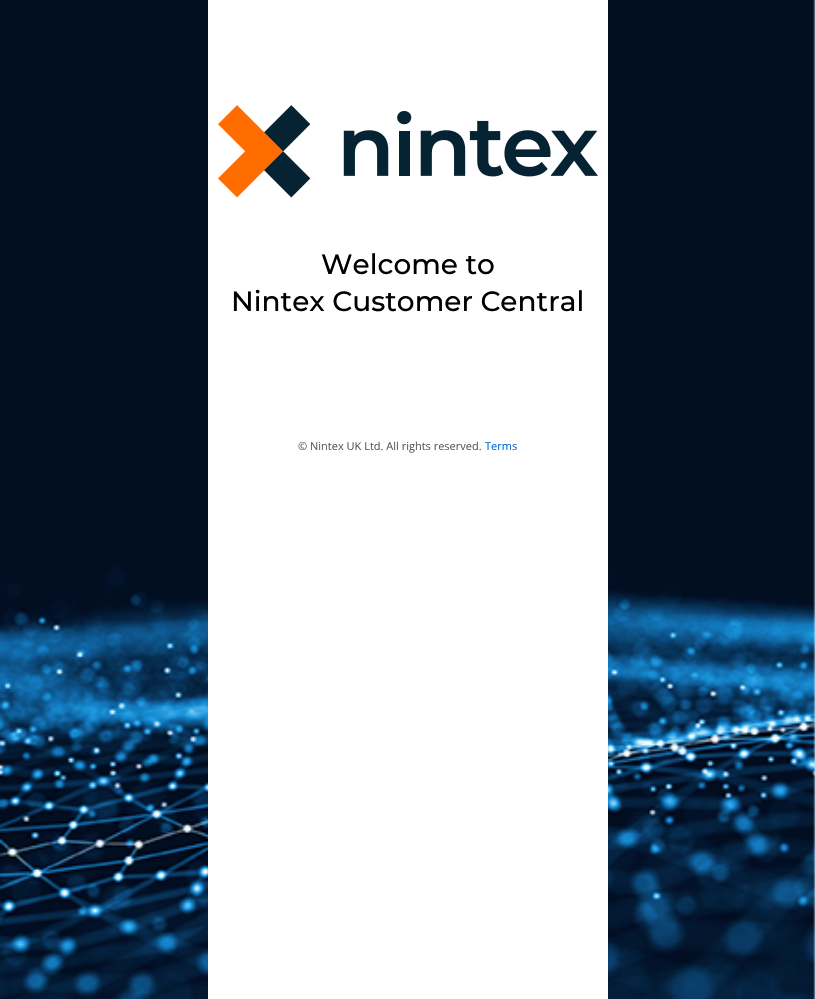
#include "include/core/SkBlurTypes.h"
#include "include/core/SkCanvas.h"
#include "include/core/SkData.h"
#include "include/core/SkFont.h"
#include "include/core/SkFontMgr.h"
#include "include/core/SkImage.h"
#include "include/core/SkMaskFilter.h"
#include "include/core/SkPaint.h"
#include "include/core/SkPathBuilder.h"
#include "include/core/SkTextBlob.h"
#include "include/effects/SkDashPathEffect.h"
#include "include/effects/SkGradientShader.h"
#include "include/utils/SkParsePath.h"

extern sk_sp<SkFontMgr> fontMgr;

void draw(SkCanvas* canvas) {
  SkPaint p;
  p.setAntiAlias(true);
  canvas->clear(SK_ColorWHITE);
  canvas->drawImageRect(SkImages::DeferredFromEncodedData(SkData::MakeFromFileName("images/1.png")), SkRect::MakeLTRB(0, 0, 815, 999), SkSamplingOptions());
  p.setColor(SK_ColorWHITE);
  canvas->drawRect(SkRect::MakeLTRB(208, 0, 608, 999), p);
  canvas->drawImageRect(SkImages::DeferredFromEncodedData(SkData::MakeFromFileName("images/2.png")), SkRect::MakeLTRB(218, 105, 598, 198), SkSamplingOptions());
  SkFont font1(fontMgr->matchFamilyStyle("Montserrat", SkFontStyle(500, SkFontStyle::kNormal_Width, SkFontStyle::kUpright_Slant)), 28);
  font1.setSubpixel(true);
  p.setColor(SK_ColorBLACK);
  canvas->drawString("Welcome to", 321, 274, font1, p);
  canvas->drawString("Nintex Customer Central", 231, 311, font1, p);
  SkFont font2(fontMgr->matchFamilyStyle("Open Sans", SkFontStyle::Normal()), 11);
  font2.setSubpixel(true);
  p.setColor(SkColorSetRGB(91, 91, 91));
  canvas->drawString("© Nintex UK Ltd. All rights reserved.", 298, 450, font2, p);
  p.setColor(SkColorSetRGB(0, 107, 214));
  canvas->drawString("Terms", 485, 450, font2, p);
}
